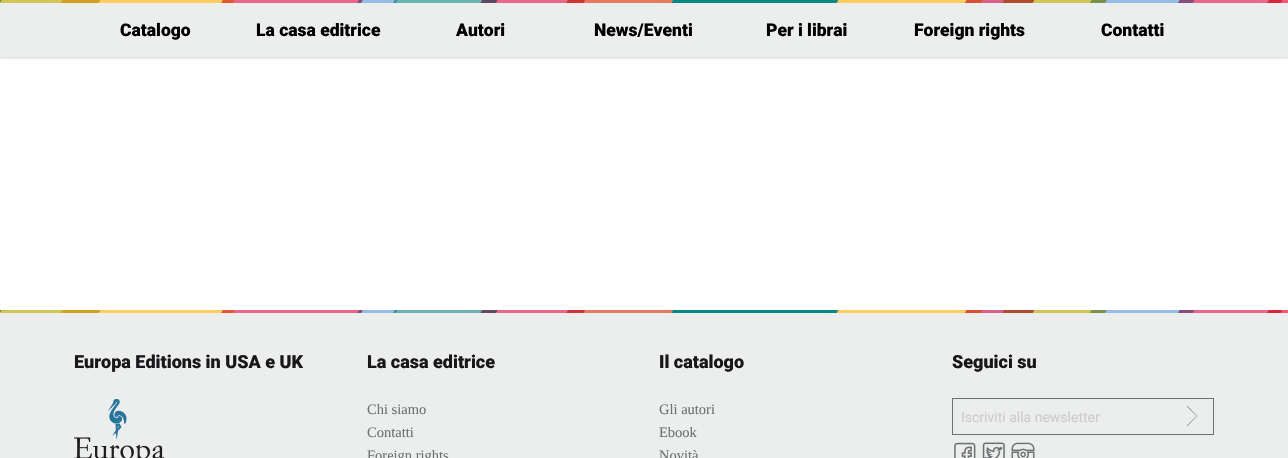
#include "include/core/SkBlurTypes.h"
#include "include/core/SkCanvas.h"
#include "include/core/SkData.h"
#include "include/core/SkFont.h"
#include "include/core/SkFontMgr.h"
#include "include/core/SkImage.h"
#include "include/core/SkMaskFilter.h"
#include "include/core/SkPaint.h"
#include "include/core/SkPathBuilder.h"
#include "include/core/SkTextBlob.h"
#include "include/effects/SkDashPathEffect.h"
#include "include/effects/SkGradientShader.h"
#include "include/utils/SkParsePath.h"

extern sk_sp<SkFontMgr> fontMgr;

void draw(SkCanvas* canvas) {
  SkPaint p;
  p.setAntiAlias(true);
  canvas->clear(SK_ColorWHITE);
  p.setColor(SkColorSetARGB(31, 0, 0, 0));
  p.setMaskFilter(SkMaskFilter::MakeBlur(kNormal_SkBlurStyle, 1));
  canvas->drawRect(SkRect::MakeLTRB(0, 1, 1288, 58), p);
  p.setMaskFilter(nullptr);
  p.setColor(SkColorSetARGB(15, 0, 0, 0));
  p.setMaskFilter(SkMaskFilter::MakeBlur(kNormal_SkBlurStyle, 1.5f));
  canvas->drawRect(SkRect::MakeLTRB(0, 1, 1288, 58), p);
  p.setMaskFilter(nullptr);
  p.setColor(SkColorSetRGB(236, 237, 237));
  canvas->drawRect(SkRect::MakeLTRB(0, 3, 1288, 57), p);
  canvas->drawImageRect(SkImages::DeferredFromEncodedData(SkData::MakeFromFileName("images/1.png")), SkRect::MakeLTRB(0, 0, 1288, 3), SkSamplingOptions());
  canvas->drawRect(SkRect::MakeLTRB(0, 313, 1288, 458), p);
  canvas->drawImageRect(SkImages::DeferredFromEncodedData(SkData::MakeFromFileName("images/1.png")), SkRect::MakeLTRB(0, 310, 1288, 313), SkSamplingOptions());
  canvas->drawImageRect(SkImages::DeferredFromEncodedData(SkData::MakeFromFileName("images/2.png")), SkRect::MakeLTRB(74, 399, 164, 458), SkSamplingOptions());
  p.setColor(SkColorSetRGB(111, 112, 114));
  canvas->drawRect(SkRect::MakeLTRB(952, 398, 1214, 399), p);
  canvas->drawRect(SkRect::MakeLTRB(952, 434, 1148, 435), p);
  canvas->drawRect(SkRect::MakeLTRB(952, 398, 953, 435), p);
  canvas->drawRect(SkRect::MakeLTRB(1213, 398, 1214, 435), p);
  canvas->drawRect(SkRect::MakeLTRB(1148, 434, 1214, 435), p);
  canvas->drawPath(SkPathBuilder().moveTo(1187, 425.5f).lineTo(1187.5f, 426).lineTo(1197, 416).lineTo(1187.5f, 406).lineTo(1187, 406.5f).lineTo(1196.5f, 416).close().detach(), p);
  canvas->drawImageRect(SkImages::DeferredFromEncodedData(SkData::MakeFromFileName("images/3.png")), SkRect::MakeLTRB(954, 442, 976, 458), SkSamplingOptions());
  canvas->drawImageRect(SkImages::DeferredFromEncodedData(SkData::MakeFromFileName("images/4.png")), SkRect::MakeLTRB(982, 442, 1005, 458), SkSamplingOptions());
  canvas->drawImageRect(SkImages::DeferredFromEncodedData(SkData::MakeFromFileName("images/5.png")), SkRect::MakeLTRB(1011, 442, 1035, 458), SkSamplingOptions());
  SkFont font1(fontMgr->matchFamilyStyle("Roboto", SkFontStyle(900, SkFontStyle::kNormal_Width, SkFontStyle::kUpright_Slant)), 17.5f);
  font1.setSubpixel(true);
  p.setColor(SK_ColorBLACK);
  canvas->drawString("Catalogo", 120, 36, font1, p);
  canvas->drawString("La casa editrice", 256, 36, font1, p);
  canvas->drawString("Autori", 456, 36, font1, p);
  canvas->drawString("News/Eventi", 594, 36, font1, p);
  canvas->drawString("Per i librai", 766, 36, font1, p);
  canvas->drawString("Foreign rights", 914, 36, font1, p);
  canvas->drawString("Contatti", 1101, 36, font1, p);
  SkFont font2(fontMgr->matchFamilyStyle("Roboto", SkFontStyle(900, SkFontStyle::kNormal_Width, SkFontStyle::kUpright_Slant)), 18);
  font2.setSubpixel(true);
  p.setColor(SkColorSetRGB(26, 23, 27));
  canvas->drawString("Europa Editions in USA e UK", 74, 368, font2, p);
  canvas->drawString("La casa editrice", 367, 368, font2, p);
  SkFont font3(fontMgr->matchFamilyStyle("Liberation Serif", SkFontStyle::Normal()), 14.5f);
  font3.setSubpixel(true);
  p.setColor(SkColorSetRGB(111, 112, 114));
  canvas->drawString("Chi siamo", 367, 414, font3, p);
  canvas->drawString("Contatti", 367, 437, font3, p);
  canvas->drawString("Foreign rights", 367, 460, font3, p);
  p.setColor(SkColorSetRGB(26, 23, 27));
  canvas->drawString("Il catalogo", 659, 368, font2, p);
  p.setColor(SkColorSetRGB(111, 112, 114));
  canvas->drawString("Gli autori", 659, 414, font3, p);
  canvas->drawString("Ebook", 659, 437, font3, p);
  canvas->drawString("Novità", 659, 460, font3, p);
  p.setColor(SkColorSetRGB(26, 23, 27));
  canvas->drawString("Seguici su", 952, 368, font2, p);
  SkFont font4(fontMgr->matchFamilyStyle("Roboto", SkFontStyle::Normal()), 14);
  font4.setSubpixel(true);
  p.setColor(SkColorSetRGB(204, 204, 204));
  canvas->drawString("Iscriviti alla newsletter", 961, 422, font4, p);
}
